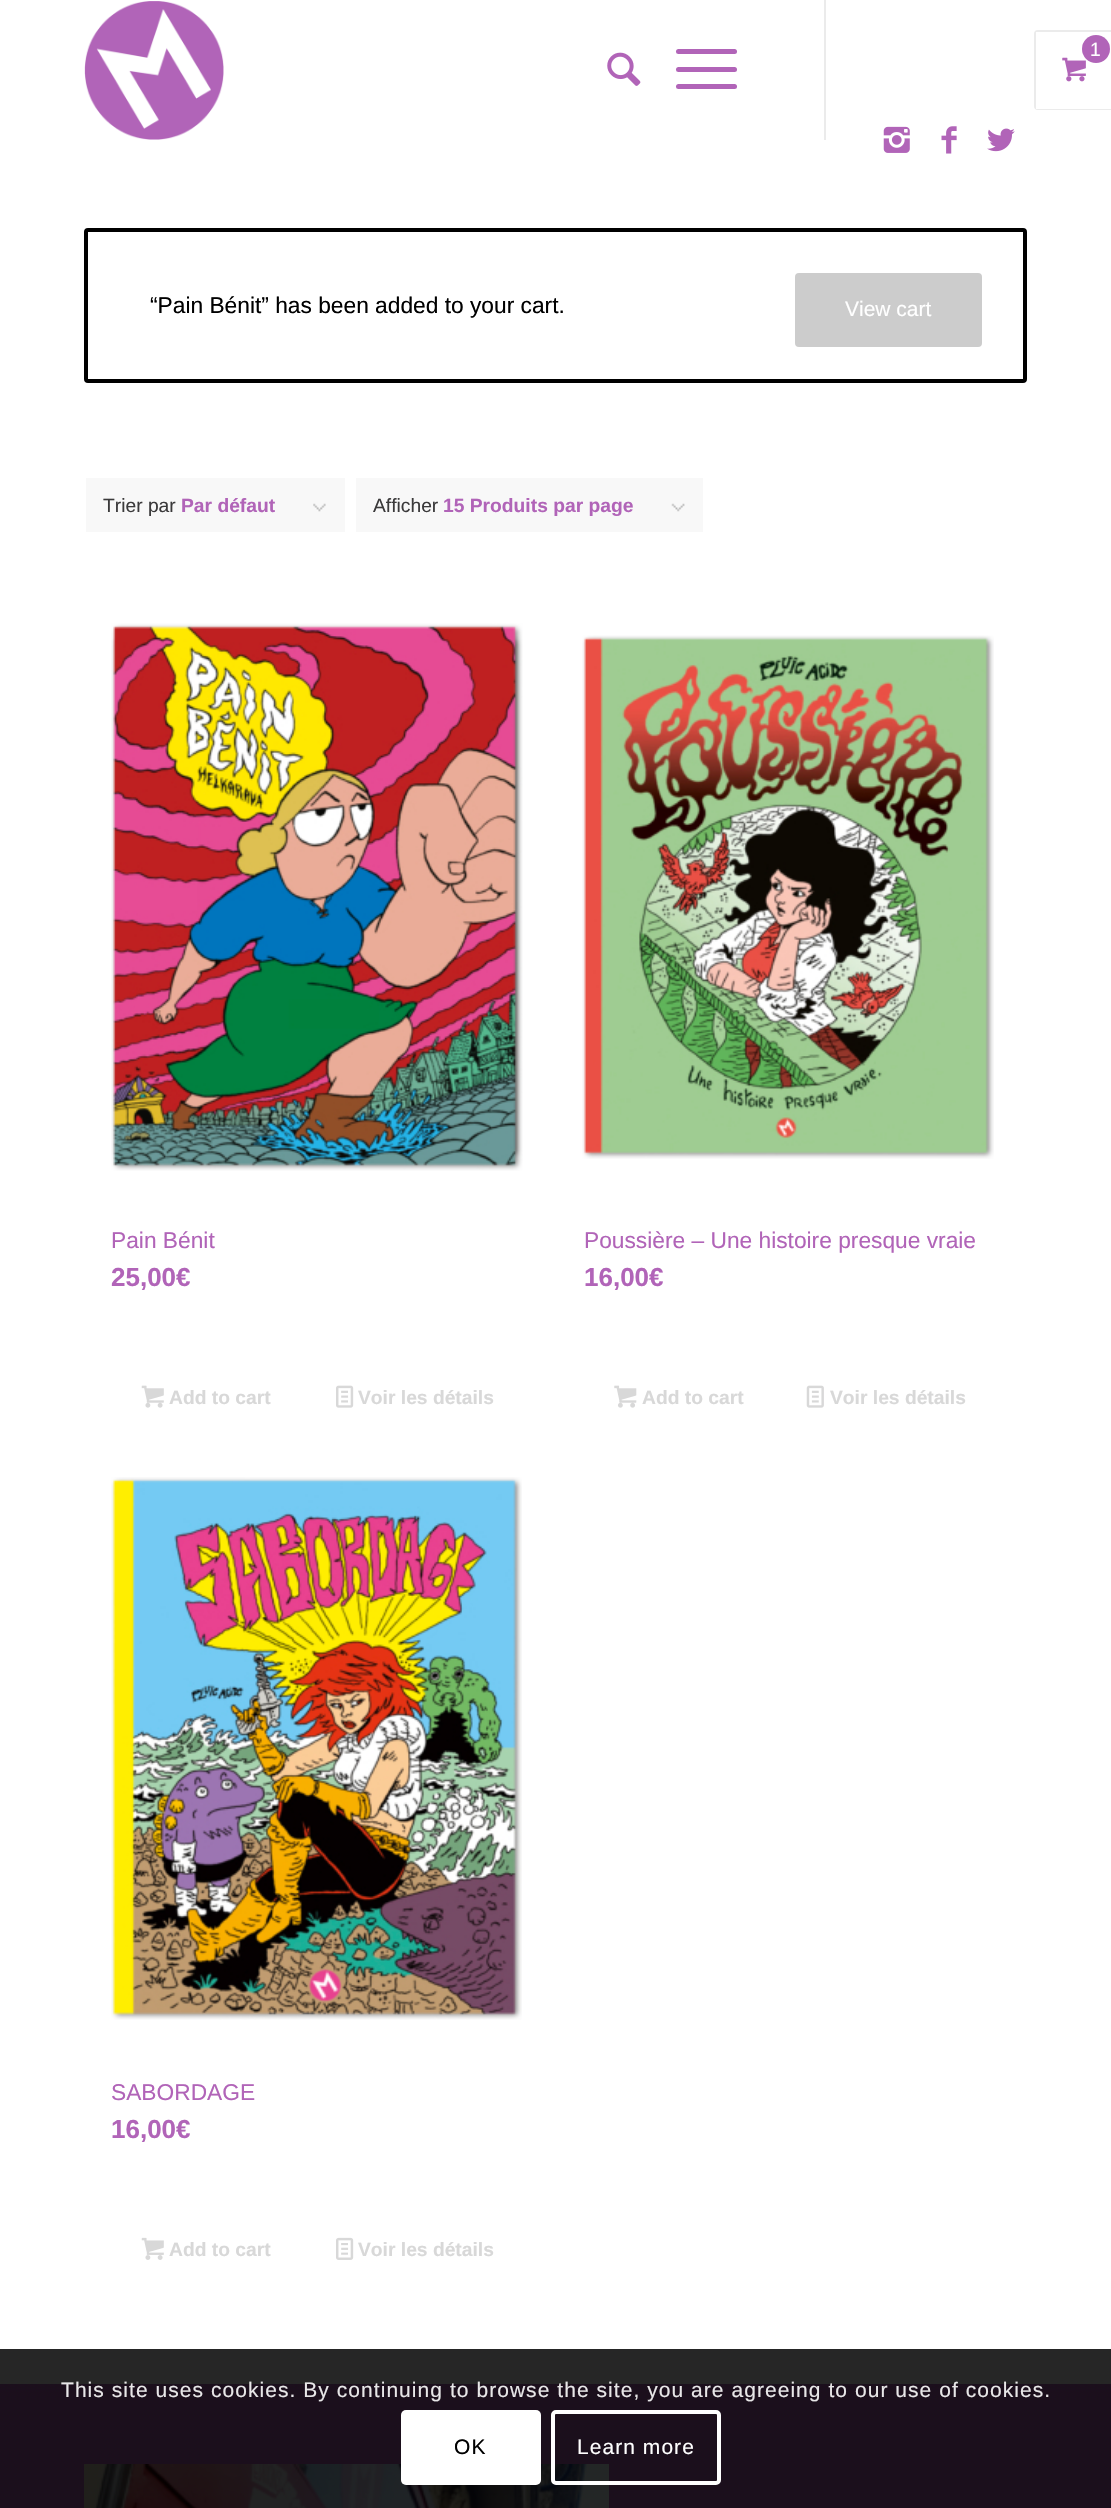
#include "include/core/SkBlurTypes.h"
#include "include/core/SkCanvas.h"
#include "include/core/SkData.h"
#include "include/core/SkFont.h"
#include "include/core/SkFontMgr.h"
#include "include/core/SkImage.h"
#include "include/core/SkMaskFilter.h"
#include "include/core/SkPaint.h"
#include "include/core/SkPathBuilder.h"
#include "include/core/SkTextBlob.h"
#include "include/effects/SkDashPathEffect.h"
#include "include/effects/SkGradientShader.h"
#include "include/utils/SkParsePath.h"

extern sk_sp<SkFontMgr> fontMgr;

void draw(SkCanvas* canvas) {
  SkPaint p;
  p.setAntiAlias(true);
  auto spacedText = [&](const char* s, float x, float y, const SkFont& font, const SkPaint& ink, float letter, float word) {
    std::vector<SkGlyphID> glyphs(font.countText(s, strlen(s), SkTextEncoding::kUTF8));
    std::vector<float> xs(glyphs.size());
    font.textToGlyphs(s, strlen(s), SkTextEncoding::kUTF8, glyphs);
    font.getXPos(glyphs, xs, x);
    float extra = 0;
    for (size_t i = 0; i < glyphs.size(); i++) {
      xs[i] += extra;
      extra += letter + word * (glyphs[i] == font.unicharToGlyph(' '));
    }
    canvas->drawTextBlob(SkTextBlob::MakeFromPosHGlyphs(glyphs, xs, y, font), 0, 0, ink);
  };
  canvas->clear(SK_ColorWHITE);
  p.setColor(SkColorSetRGB(38, 38, 38));
  canvas->drawRect(SkRect::MakeLTRB(0, 2349, 1111, 2384), p);
  canvas->drawImageRect(SkImages::DeferredFromEncodedData(SkData::MakeFromFileName("images/1.png")), SkRect::MakeLTRB(84, 1, 224, 140), SkSamplingOptions());
  p.setColor(SkColorSetRGB(235, 235, 235));
  canvas->drawRect(SkRect::MakeLTRB(824, 0, 826, 140), p);
  canvas->drawImageRect(SkImages::DeferredFromEncodedData(SkData::MakeFromFileName("images/2.png")), SkRect::MakeLTRB(607, 52, 641, 86), SkSamplingOptions());
  p.setColor(SkColorSetRGB(177, 100, 184));
  canvas->drawRoundRect(SkRect::MakeLTRB(676, 67, 737, 72), 2.5f, 2.5f, p);
  canvas->drawRoundRect(SkRect::MakeLTRB(676, 49, 737, 54), 2.5f, 2.5f, p);
  canvas->drawRoundRect(SkRect::MakeLTRB(676, 84, 737, 89), 2.5f, 2.5f, p);
  canvas->drawImageRect(SkImages::DeferredFromEncodedData(SkData::MakeFromFileName("images/3.png")), SkRect::MakeLTRB(883, 126, 910, 153), SkSamplingOptions());
  canvas->drawImageRect(SkImages::DeferredFromEncodedData(SkData::MakeFromFileName("images/4.png")), SkRect::MakeLTRB(941, 126, 957, 154), SkSamplingOptions());
  canvas->drawImageRect(SkImages::DeferredFromEncodedData(SkData::MakeFromFileName("images/5.png")), SkRect::MakeLTRB(987, 128, 1015, 152), SkSamplingOptions());
  p.setStyle(SkPaint::kStroke_Style);
  p.setStrokeWidth(2);
  p.setColor(SkColorSetRGB(235, 235, 235));
  canvas->drawRoundRect(SkRect::MakeLTRB(1035, 31, 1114, 109), 3, 3, p);
  p.setStyle(SkPaint::kFill_Style);
  p.setColor(SK_ColorWHITE);
  canvas->drawRect(SkRect::MakeLTRB(1036, 32, 1111, 109), p);
  canvas->drawImageRect(SkImages::DeferredFromEncodedData(SkData::MakeFromFileName("images/6.png")), SkRect::MakeLTRB(1062, 57, 1086, 82), SkSamplingOptions());
  p.setColor(SkColorSetRGB(177, 100, 184));
  canvas->drawCircle(1096, 49, 14, p);
  p.setStyle(SkPaint::kStroke_Style);
  p.setStrokeWidth(4);
  p.setColor(SK_ColorBLACK);
  canvas->drawRoundRect(SkRect::MakeLTRB(86, 230, 1025, 381), 2, 2, p);
  p.setStyle(SkPaint::kFill_Style);
  p.setColor(SkColorSetRGB(204, 204, 204));
  canvas->drawRoundRect(SkRect::MakeLTRB(795, 273, 982, 347), 4, 4, p);
  p.setColor(SkColorSetRGB(248, 248, 248));
  canvas->drawRect(SkRect::MakeLTRB(86, 478, 345, 532), p);
  canvas->drawImageRect(SkImages::DeferredFromEncodedData(SkData::MakeFromFileName("images/7.png")), SkRect::MakeLTRB(313, 503, 326, 512), SkSamplingOptions());
  canvas->drawRect(SkRect::MakeLTRB(356, 478, 703, 532), p);
  canvas->drawImageRect(SkImages::DeferredFromEncodedData(SkData::MakeFromFileName("images/8.png")), SkRect::MakeLTRB(671, 503, 685, 512), SkSamplingOptions());
  canvas->drawImageRect(SkImages::DeferredFromEncodedData(SkData::MakeFromFileName("images/9.png")), SkRect::MakeLTRB(111, 623, 523, 1171), SkSamplingOptions());
  canvas->drawImageRect(SkImages::DeferredFromEncodedData(SkData::MakeFromFileName("images/10.png")), SkRect::MakeLTRB(141, 1385, 164, 1408), SkSamplingOptions());
  canvas->drawImageRect(SkImages::DeferredFromEncodedData(SkData::MakeFromFileName("images/11.png")), SkRect::MakeLTRB(336, 1385, 354, 1408), SkSamplingOptions());
  canvas->drawImageRect(SkImages::DeferredFromEncodedData(SkData::MakeFromFileName("images/12.png")), SkRect::MakeLTRB(582, 635, 994, 1159), SkSamplingOptions());
  canvas->drawImageRect(SkImages::DeferredFromEncodedData(SkData::MakeFromFileName("images/13.png")), SkRect::MakeLTRB(614, 1385, 637, 1408), SkSamplingOptions());
  canvas->drawImageRect(SkImages::DeferredFromEncodedData(SkData::MakeFromFileName("images/14.png")), SkRect::MakeLTRB(806, 1385, 824, 1408), SkSamplingOptions());
  canvas->drawImageRect(SkImages::DeferredFromEncodedData(SkData::MakeFromFileName("images/15.png")), SkRect::MakeLTRB(111, 1477, 522, 2020), SkSamplingOptions());
  canvas->drawImageRect(SkImages::DeferredFromEncodedData(SkData::MakeFromFileName("images/16.png")), SkRect::MakeLTRB(141, 2237, 164, 2260), SkSamplingOptions());
  canvas->drawImageRect(SkImages::DeferredFromEncodedData(SkData::MakeFromFileName("images/17.png")), SkRect::MakeLTRB(336, 2237, 354, 2260), SkSamplingOptions());
  p.setColor(SkColorSetRGB(27, 15, 28));
  canvas->drawRect(SkRect::MakeLTRB(0, 2384, 1111, 2508), p);
  canvas->drawImageRect(SkImages::DeferredFromEncodedData(SkData::MakeFromFileName("images/18.png")), SkRect::MakeLTRB(84, 2464, 609, 2508), SkSamplingOptions());
  p.setColor(SK_ColorWHITE);
  canvas->drawRoundRect(SkRect::MakeLTRB(401, 2410, 541, 2485), 5, 5, p);
  p.setStyle(SkPaint::kStroke_Style);
  canvas->drawRoundRect(SkRect::MakeLTRB(553, 2412, 719, 2483), 3, 3, p);
  SkFont font1(fontMgr->matchFamilyStyle("Liberation Sans", SkFontStyle::Normal()), 19.25f);
  font1.setSubpixel(true);
  p.setStyle(SkPaint::kFill_Style);
  canvas->drawString("1", 1090, 56, font1, p);
  SkFont font2(fontMgr->matchFamilyStyle("Liberation Sans", SkFontStyle::Normal()), 22.75f);
  font2.setSubpixel(true);
  p.setColor(SK_ColorBLACK);
  canvas->drawString("“Pain Bénit” has been added to your cart.", 150, 313, font2, p);
  SkFont font3(fontMgr->matchFamilyStyle("Liberation Sans", SkFontStyle::Normal()), 21);
  font3.setSubpixel(true);
  p.setColor(SK_ColorWHITE);
  canvas->drawString("View cart", 845, 316, font3, p);
  p.setColor(SkColorSetRGB(59, 58, 59));
  canvas->drawString("Trier par", 103, 512, font1, p);
  SkFont font4(fontMgr->matchFamilyStyle("Liberation Sans", SkFontStyle::Bold()), 19.25f);
  font4.setSubpixel(true);
  p.setColor(SkColorSetRGB(177, 100, 184));
  canvas->drawString("Par défaut", 181, 512, font4, p);
  p.setColor(SkColorSetRGB(59, 58, 59));
  canvas->drawString("Afficher", 373, 512, font1, p);
  p.setColor(SkColorSetRGB(177, 100, 184));
  canvas->drawString("15 Produits par page", 443, 512, font4, p);
  canvas->drawString("Pain Bénit", 111, 1248, font2, p);
  SkFont font5(fontMgr->matchFamilyStyle("Liberation Sans", SkFontStyle::Bold()), 26);
  font5.setSubpixel(true);
  canvas->drawString("25,00€", 111, 1286, font5, p);
  p.setColor(SkColorSetRGB(216, 216, 216));
  canvas->drawString("Add to cart", 169, 1404, font4, p);
  canvas->drawString("Voir les détails", 358, 1404, font4, p);
  p.setColor(SkColorSetRGB(177, 100, 184));
  canvas->drawString("Poussière – Une histoire presque vraie", 584, 1248, font2, p);
  canvas->drawString("16,00€", 584, 1286, font5, p);
  p.setColor(SkColorSetRGB(216, 216, 216));
  canvas->drawString("Add to cart", 642, 1404, font4, p);
  canvas->drawString("Voir les détails", 830, 1404, font4, p);
  p.setColor(SkColorSetRGB(177, 100, 184));
  canvas->drawString("SABORDAGE", 111, 2100, font2, p);
  canvas->drawString("16,00€", 111, 2138, font5, p);
  p.setColor(SkColorSetRGB(216, 216, 216));
  canvas->drawString("Add to cart", 169, 2256, font4, p);
  canvas->drawString("Voir les détails", 358, 2256, font4, p);
  p.setColor(SkColorSetRGB(232, 231, 232));
  spacedText("This site uses cookies. By continuing to browse the site, you are agreeing to our use of cookies.", 61, 2397, font3, p, 1.05f, 0);
  p.setColor(SK_ColorBLACK);
  spacedText("OK", 454, 2454, font3, p, 1.05f, 0);
  p.setColor(SK_ColorWHITE);
  spacedText("Learn more", 577, 2454, font3, p, 1.05f, 0);
}
